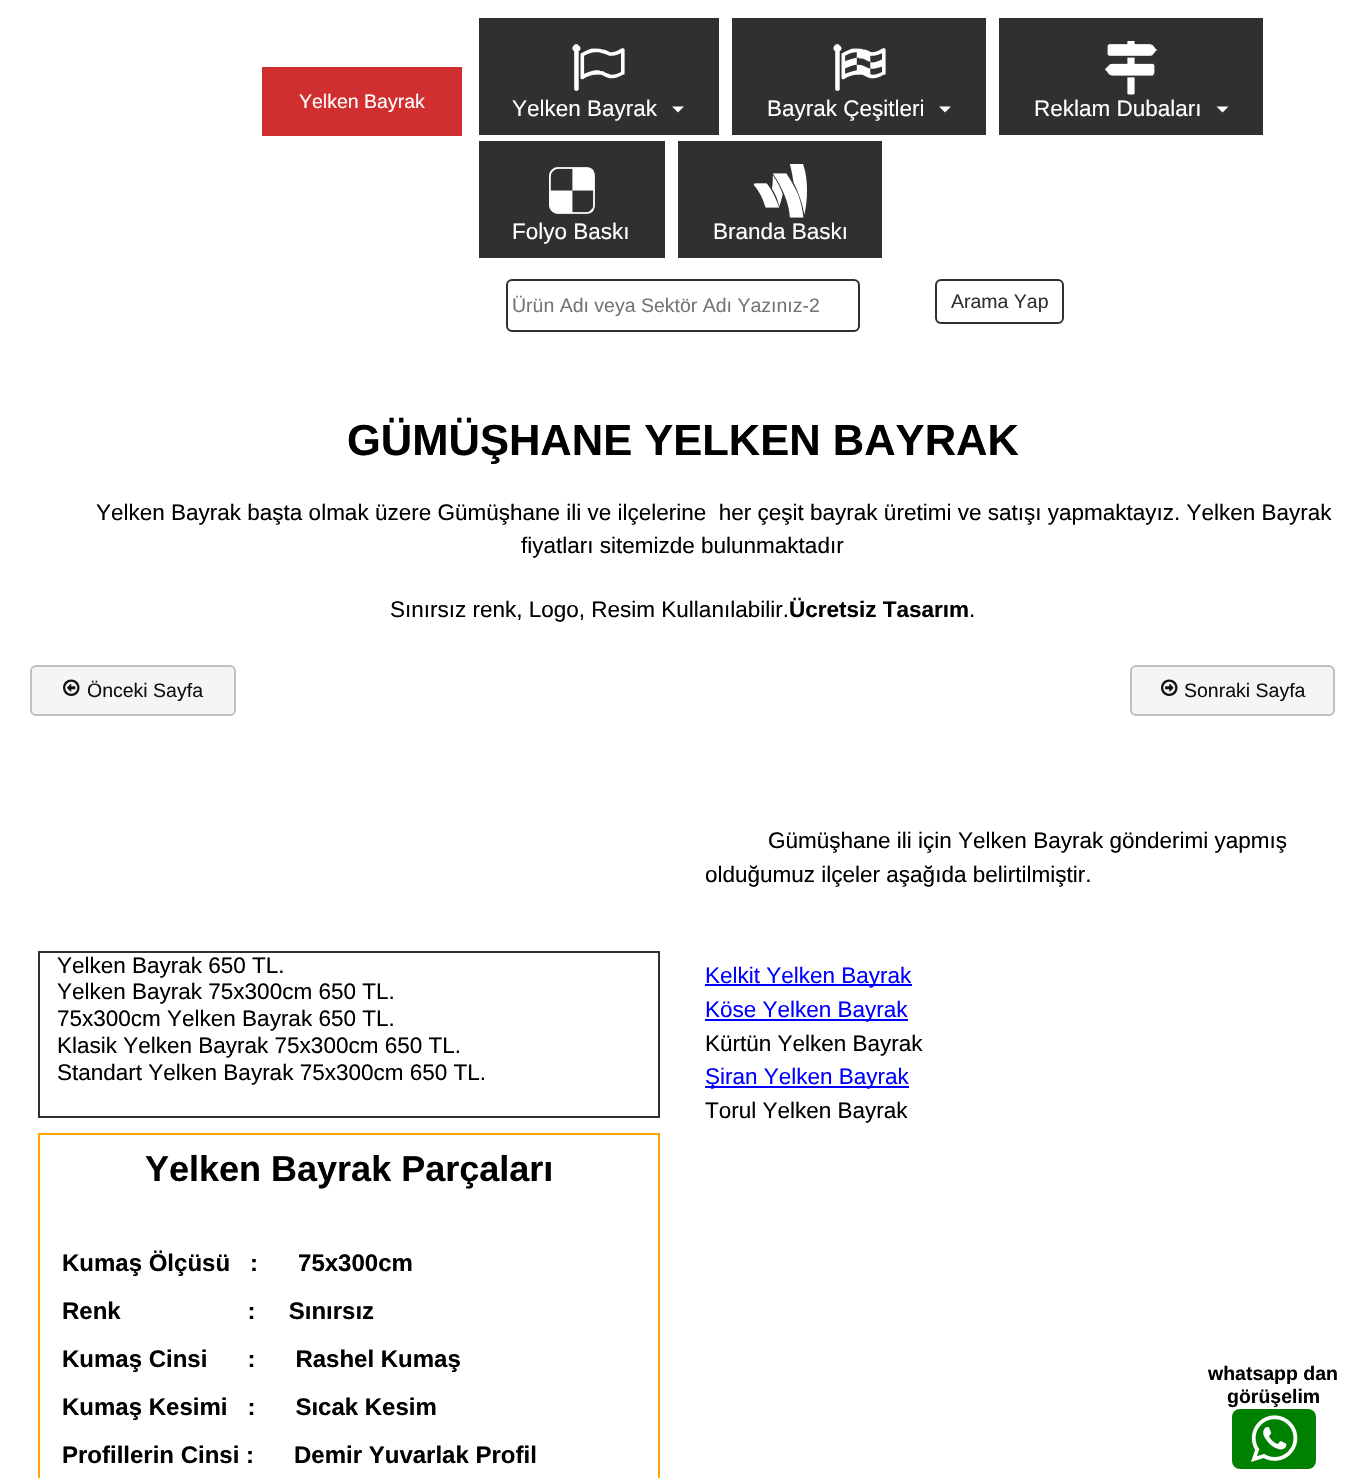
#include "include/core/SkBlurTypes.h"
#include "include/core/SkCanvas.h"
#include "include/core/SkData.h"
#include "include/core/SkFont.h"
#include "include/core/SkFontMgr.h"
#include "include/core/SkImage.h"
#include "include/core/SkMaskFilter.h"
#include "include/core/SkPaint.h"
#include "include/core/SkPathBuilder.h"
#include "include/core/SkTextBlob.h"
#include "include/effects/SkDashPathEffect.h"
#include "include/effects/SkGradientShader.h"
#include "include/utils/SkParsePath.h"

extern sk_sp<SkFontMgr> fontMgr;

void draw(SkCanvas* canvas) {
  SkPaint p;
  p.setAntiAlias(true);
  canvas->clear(SK_ColorWHITE);
  p.setColor(SkColorSetRGB(209, 47, 47));
  canvas->drawRect(SkRect::MakeLTRB(262, 67, 462, 136), p);
  p.setColor(SkColorSetRGB(48, 48, 48));
  canvas->drawRect(SkRect::MakeLTRB(479, 18, 719, 135), p);
  canvas->drawImageRect(SkImages::DeferredFromEncodedData(SkData::MakeFromFileName("images/1.png")), SkRect::MakeLTRB(572, 44, 625, 91), SkSamplingOptions());
  p.setColor(SK_ColorWHITE);
  canvas->drawPath(SkPathBuilder().moveTo(672, 106.5f).lineTo(684, 106.5f).lineTo(678, 112.5f).close().detach(), p);
  p.setColor(SkColorSetRGB(48, 48, 48));
  canvas->drawRect(SkRect::MakeLTRB(732, 18, 986, 135), p);
  canvas->drawImageRect(SkImages::DeferredFromEncodedData(SkData::MakeFromFileName("images/2.png")), SkRect::MakeLTRB(833, 44, 886, 91), SkSamplingOptions());
  p.setColor(SK_ColorWHITE);
  canvas->drawPath(SkPathBuilder().moveTo(939, 106.5f).lineTo(951, 106.5f).lineTo(945, 112.5f).close().detach(), p);
  p.setColor(SkColorSetRGB(48, 48, 48));
  canvas->drawRect(SkRect::MakeLTRB(999, 18, 1263, 135), p);
  canvas->drawImageRect(SkImages::DeferredFromEncodedData(SkData::MakeFromFileName("images/3.png")), SkRect::MakeLTRB(1104, 41, 1158, 95), SkSamplingOptions());
  p.setColor(SK_ColorWHITE);
  canvas->drawPath(SkPathBuilder().moveTo(1216.5f, 106.5f).lineTo(1228.5f, 106.5f).lineTo(1222.5f, 112.5f).close().detach(), p);
  p.setColor(SkColorSetRGB(48, 48, 48));
  canvas->drawRect(SkRect::MakeLTRB(479, 141, 665, 258), p);
  canvas->drawImageRect(SkImages::DeferredFromEncodedData(SkData::MakeFromFileName("images/4.png")), SkRect::MakeLTRB(549, 167, 595, 214), SkSamplingOptions());
  canvas->drawRect(SkRect::MakeLTRB(678, 141, 882, 258), p);
  canvas->drawImageRect(SkImages::DeferredFromEncodedData(SkData::MakeFromFileName("images/5.png")), SkRect::MakeLTRB(753, 164, 807, 218), SkSamplingOptions());
  p.setStyle(SkPaint::kStroke_Style);
  p.setStrokeWidth(2);
  canvas->drawRoundRect(SkRect::MakeLTRB(507, 280, 859, 331), 5, 5, p);
  canvas->drawRoundRect(SkRect::MakeLTRB(936, 280, 1063, 323), 5, 5, p);
  p.setStyle(SkPaint::kFill_Style);
  p.setColor(SkColorSetRGB(0, 128, 0));
  canvas->drawRoundRect(SkRect::MakeLTRB(1232, 1409, 1316, 1469), 8, 8, p);
  canvas->drawImageRect(SkImages::DeferredFromEncodedData(SkData::MakeFromFileName("images/6.png")), SkRect::MakeLTRB(1251, 1415, 1298, 1462), SkSamplingOptions());
  p.setColor(SkColorSetRGB(245, 245, 245));
  canvas->drawRoundRect(SkRect::MakeLTRB(31, 666, 235, 715), 5, 5, p);
  p.setStyle(SkPaint::kStroke_Style);
  p.setColor(SkColorSetRGB(192, 192, 192));
  canvas->drawRoundRect(SkRect::MakeLTRB(31, 666, 235, 715), 5, 5, p);
  canvas->drawImageRect(SkImages::DeferredFromEncodedData(SkData::MakeFromFileName("images/7.png")), SkRect::MakeLTRB(63, 679, 80, 696), SkSamplingOptions());
  p.setStyle(SkPaint::kFill_Style);
  p.setColor(SkColorSetRGB(245, 245, 245));
  canvas->drawRoundRect(SkRect::MakeLTRB(1131, 666, 1334, 715), 5, 5, p);
  p.setStyle(SkPaint::kStroke_Style);
  p.setColor(SkColorSetRGB(192, 192, 192));
  canvas->drawRoundRect(SkRect::MakeLTRB(1131, 666, 1334, 715), 5, 5, p);
  canvas->drawImageRect(SkImages::DeferredFromEncodedData(SkData::MakeFromFileName("images/8.png")), SkRect::MakeLTRB(1161, 679, 1178, 696), SkSamplingOptions());
  p.setColor(SkColorSetRGB(48, 48, 48));
  canvas->drawRect(SkRect::MakeLTRB(39, 952, 659, 1117), p);
  p.setColor(SkColorSetRGB(255, 165, 0));
  canvas->drawRect(SkRect::MakeLTRB(39, 1134, 659, 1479), p);
  p.setStyle(SkPaint::kFill_Style);
  p.setColor(SkColorSetRGB(0, 0, 255));
  canvas->drawRect(SkRect::MakeLTRB(705, 984, 912, 986), p);
  canvas->drawRect(SkRect::MakeLTRB(705, 1019, 908, 1021), p);
  canvas->drawRect(SkRect::MakeLTRB(705, 1086, 909, 1088), p);
  SkFont font1(fontMgr->matchFamilyStyle("Liberation Sans", SkFontStyle::Normal()), 19.5f);
  font1.setSubpixel(true);
  p.setColor(SK_ColorWHITE);
  canvas->drawString("Yelken Bayrak", 299, 108, font1, p);
  SkFont font2(fontMgr->matchFamilyStyle("Liberation Sans", SkFontStyle::Normal()), 22.5f);
  font2.setSubpixel(true);
  canvas->drawString("Yelken Bayrak", 512, 116, font2, p);
  canvas->drawString("Bayrak Çeşitleri", 767, 116, font2, p);
  canvas->drawString("Reklam Dubaları", 1034, 116, font2, p);
  canvas->drawString("Folyo Baskı", 512, 239, font2, p);
  canvas->drawString("Branda Baskı", 713, 239, font2, p);
  p.setColor(SkColorSetRGB(117, 117, 117));
  canvas->drawString("Ürün Adı veya Sektör Adı Yazınız-2", 512, 312, font1, p);
  p.setColor(SkColorSetRGB(48, 48, 48));
  canvas->drawString("Arama Yap", 951, 308, font1, p);
  SkFont font3(fontMgr->matchFamilyStyle("Liberation Sans", SkFontStyle::Bold()), 19.5f);
  font3.setSubpixel(true);
  p.setColor(SK_ColorBLACK);
  canvas->drawString("whatsapp dan", 1208, 1380, font3, p);
  canvas->drawString("görüşelim", 1227, 1403, font3, p);
  SkFont font4(fontMgr->matchFamilyStyle("Liberation Sans", SkFontStyle::Bold()), 43.5f);
  font4.setSubpixel(true);
  canvas->drawString("GÜMÜŞHANE YELKEN BAYRAK", 347, 455, font4, p);
  canvas->drawString("Yelken Bayrak başta olmak üzere Gümüşhane ili ve ilçelerine  her çeşit bayrak üretimi ve satışı yapmaktayız. Yelken Bayrak", 96, 520, font2, p);
  canvas->drawString("fiyatları sitemizde bulunmaktadır", 521, 553, font2, p);
  canvas->drawString("Sınırsız renk, Logo, Resim Kullanılabilir.", 390, 617, font2, p);
  SkFont font5(fontMgr->matchFamilyStyle("Liberation Sans", SkFontStyle::Bold()), 22.5f);
  font5.setSubpixel(true);
  canvas->drawString("Ücretsiz Tasarım", 789, 617, font5, p);
  canvas->drawString(".", 969, 617, font2, p);
  p.setColor(SkColorSetRGB(16, 16, 16));
  canvas->drawString("Önceki Sayfa", 87, 697, font1, p);
  canvas->drawString("Sonraki Sayfa", 1184, 697, font1, p);
  p.setColor(SK_ColorBLACK);
  canvas->drawString("Yelken Bayrak 650 TL.", 57, 973, font2, p);
  canvas->drawString("Yelken Bayrak 75x300cm 650 TL.", 57, 999, font2, p);
  canvas->drawString("75x300cm Yelken Bayrak 650 TL.", 57, 1026, font2, p);
  canvas->drawString("Klasik Yelken Bayrak 75x300cm 650 TL.", 57, 1053, font2, p);
  canvas->drawString("Standart Yelken Bayrak 75x300cm 650 TL.", 57, 1080, font2, p);
  SkFont font6(fontMgr->matchFamilyStyle("Liberation Sans", SkFontStyle::Bold()), 36);
  font6.setSubpixel(true);
  canvas->drawString("Yelken Bayrak Parçaları", 145, 1181, font6, p);
  SkFont font7(fontMgr->matchFamilyStyle("Liberation Sans", SkFontStyle::Bold()), 24);
  font7.setSubpixel(true);
  canvas->drawString("Kumaş Ölçüsü   :      75x300cm", 62, 1271, font7, p);
  canvas->drawString("Renk                   :     Sınırsız", 62, 1319, font7, p);
  canvas->drawString("Kumaş Cinsi      :      Rashel Kumaş", 62, 1367, font7, p);
  canvas->drawString("Kumaş Kesimi   :      Sıcak Kesim", 62, 1415, font7, p);
  canvas->drawString("Profillerin Cinsi :      Demir Yuvarlak Profil", 62, 1463, font7, p);
  canvas->drawString("Gümüşhane ili için Yelken Bayrak gönderimi yapmış", 768, 848, font2, p);
  canvas->drawString("olduğumuz ilçeler aşağıda belirtilmiştir.", 705, 882, font2, p);
  p.setColor(SkColorSetRGB(0, 0, 255));
  canvas->drawString("Kelkit Yelken Bayrak", 705, 983, font2, p);
  canvas->drawString("Köse Yelken Bayrak", 705, 1017, font2, p);
  p.setColor(SK_ColorBLACK);
  canvas->drawString("Kürtün Yelken Bayrak", 705, 1051, font2, p);
  p.setColor(SkColorSetRGB(0, 0, 255));
  canvas->drawString("Şiran Yelken Bayrak", 705, 1084, font2, p);
  p.setColor(SK_ColorBLACK);
  canvas->drawString("Torul Yelken Bayrak", 705, 1118, font2, p);
}
